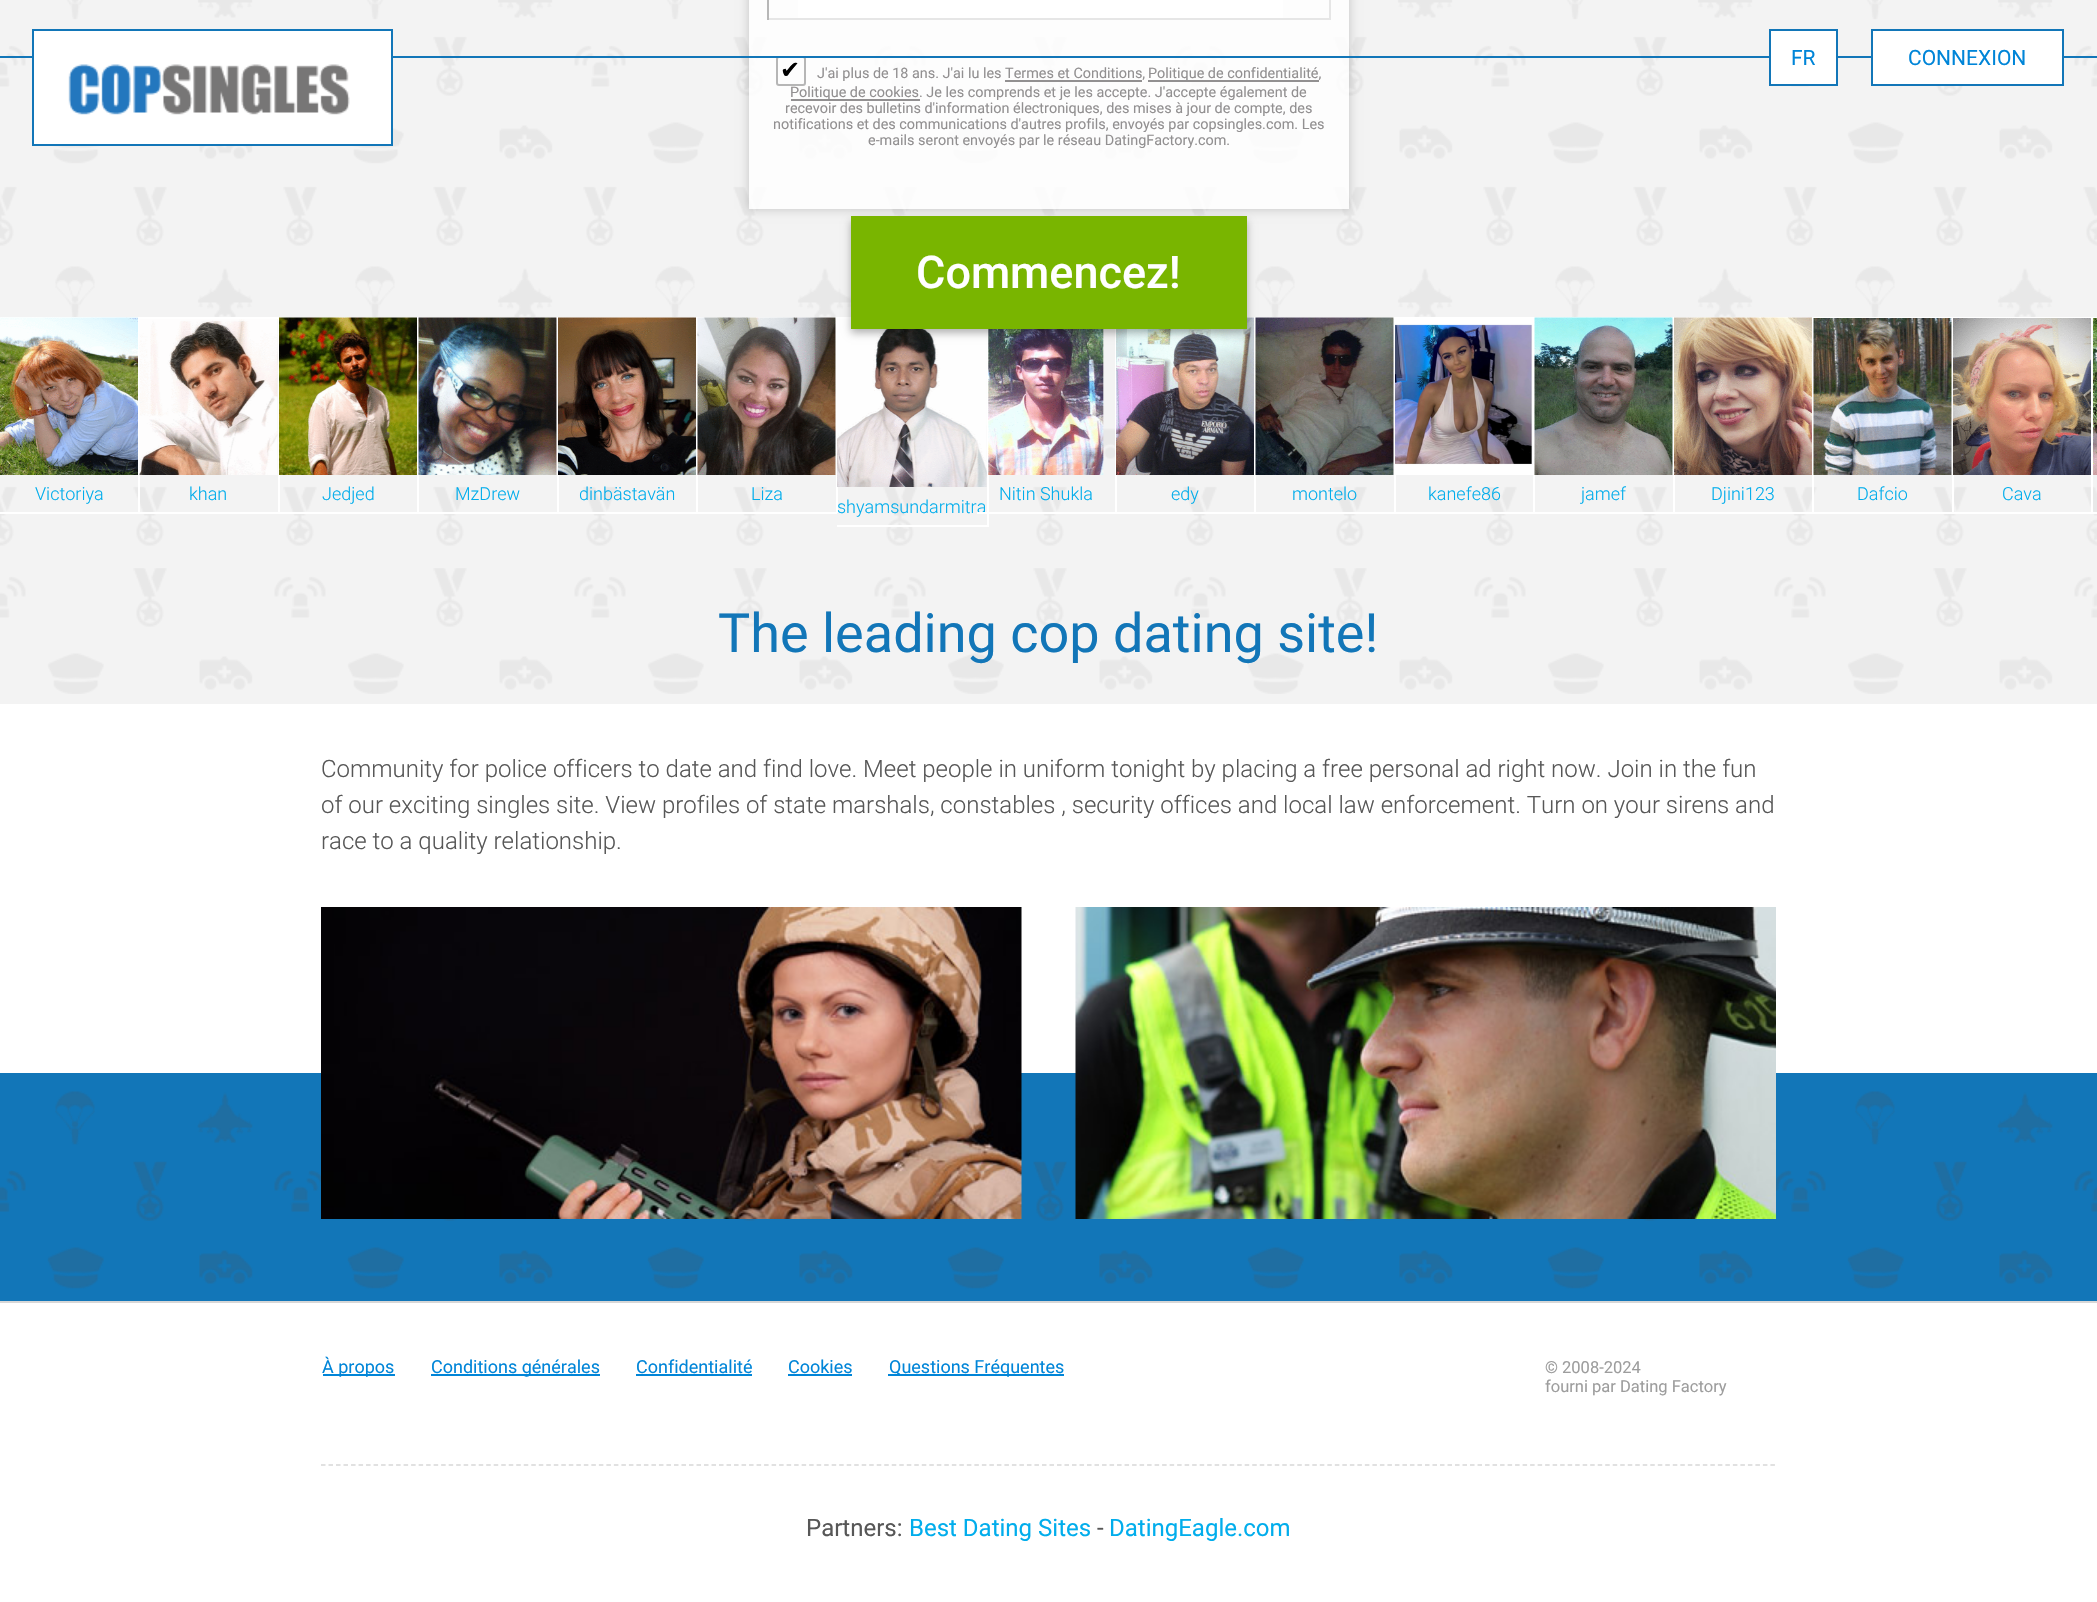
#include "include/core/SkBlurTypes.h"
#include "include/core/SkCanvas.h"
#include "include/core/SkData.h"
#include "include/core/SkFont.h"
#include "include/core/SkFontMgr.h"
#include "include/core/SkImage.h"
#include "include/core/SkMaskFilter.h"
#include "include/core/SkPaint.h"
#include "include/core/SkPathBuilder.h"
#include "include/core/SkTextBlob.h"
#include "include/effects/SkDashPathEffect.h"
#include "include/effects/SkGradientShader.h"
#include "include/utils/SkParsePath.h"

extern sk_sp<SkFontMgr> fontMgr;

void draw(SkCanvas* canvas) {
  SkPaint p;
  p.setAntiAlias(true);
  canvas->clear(SK_ColorWHITE);
  p.setColor(SkColorSetRGB(243, 243, 243));
  canvas->drawRect(SkRect::MakeLTRB(0, 0, 2097, 704), p);
  canvas->drawImageRect(SkImages::DeferredFromEncodedData(SkData::MakeFromFileName("images/1.png")), SkRect::MakeLTRB(0, 0, 2097, 546), SkSamplingOptions());
  canvas->save();
  canvas->clipPath(SkPathBuilder(SkPathFillType::kEvenOdd).moveTo(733, 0).lineTo(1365, 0).lineTo(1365, 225).lineTo(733, 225).close().moveTo(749, -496).lineTo(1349, -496).lineTo(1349, 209).lineTo(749, 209).close().detach(), true);
  p.setColor(SkColorSetARGB(51, 0, 0, 0));
  p.setMaskFilter(SkMaskFilter::MakeBlur(kNormal_SkBlurStyle, 5));
  canvas->drawRect(SkRect::MakeLTRB(749, -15, 1349, 209), p);
  p.setMaskFilter(nullptr);
  canvas->restore();
  p.setColor(SkColorSetARGB(204, 255, 255, 255));
  canvas->drawRect(SkRect::MakeLTRB(749, 0, 1349, 209), p);
  p.setStyle(SkPaint::kStroke_Style);
  p.setStrokeWidth(2);
  p.setColor(SkColorSetRGB(182, 182, 182));
  canvas->drawRoundRect(SkRect::MakeLTRB(777, 57, 805, 85), 2, 2, p);
  p.setStyle(SkPaint::kFill_Style);
  p.setColor(SkColorSetRGB(18, 118, 184));
  canvas->drawRect(SkRect::MakeLTRB(0, 56, 2097, 58), p);
  p.setColor(SK_ColorWHITE);
  canvas->drawRect(SkRect::MakeLTRB(33, 30, 392, 145), p);
  p.setStyle(SkPaint::kStroke_Style);
  p.setColor(SkColorSetRGB(18, 118, 184));
  canvas->drawRect(SkRect::MakeLTRB(33, 30, 392, 145), p);
  canvas->drawImageRect(SkImages::DeferredFromEncodedData(SkData::MakeFromFileName("images/2.png")), SkRect::MakeLTRB(68, 64, 350, 115), SkSamplingOptions());
  p.setStyle(SkPaint::kFill_Style);
  p.setColor(SK_ColorWHITE);
  canvas->drawRect(SkRect::MakeLTRB(1770, 30, 1837, 85), p);
  p.setStyle(SkPaint::kStroke_Style);
  p.setColor(SkColorSetRGB(18, 118, 184));
  canvas->drawRect(SkRect::MakeLTRB(1770, 30, 1837, 85), p);
  p.setStyle(SkPaint::kFill_Style);
  p.setColor(SK_ColorWHITE);
  canvas->drawRect(SkRect::MakeLTRB(1872, 30, 2063, 85), p);
  p.setStyle(SkPaint::kStroke_Style);
  p.setColor(SkColorSetRGB(18, 118, 184));
  canvas->drawRect(SkRect::MakeLTRB(1872, 30, 2063, 85), p);
  p.setStyle(SkPaint::kFill_Style);
  p.setColor(SK_ColorWHITE);
  canvas->drawRect(SkRect::MakeLTRB(798, 0, 1283, 18), p);
  p.setColor(SkColorSetRGB(230, 230, 230));
  canvas->drawRect(SkRect::MakeLTRB(1329, 0, 1331, 20), p);
  canvas->drawRect(SkRect::MakeLTRB(767, 18, 1331, 20), p);
  p.setColor(SkColorSetRGB(183, 183, 183));
  canvas->drawRect(SkRect::MakeLTRB(767, 0, 769, 20), p);
  p.setColor(SkColorSetRGB(146, 144, 145));
  canvas->drawRect(SkRect::MakeLTRB(1148, 80, 1319, 82), p);
  canvas->drawRect(SkRect::MakeLTRB(1005, 80, 1142, 82), p);
  canvas->drawRect(SkRect::MakeLTRB(791, 99, 920, 101), p);
  p.setColor(SK_ColorWHITE);
  canvas->drawRect(SkRect::MakeLTRB(1115, 329, 1117, 513), p);
  canvas->drawRect(SkRect::MakeLTRB(987, 329, 989, 527), p);
  canvas->drawImageRect(SkImages::DeferredFromEncodedData(SkData::MakeFromFileName("images/10.png")), SkRect::MakeLTRB(988, 329, 1104, 475), SkSamplingOptions());
  canvas->drawRect(SkRect::MakeLTRB(1247, 317, 1256, 318), p);
  canvas->drawRect(SkRect::MakeLTRB(1254, 317, 1256, 513), p);
  canvas->drawImageRect(SkImages::DeferredFromEncodedData(SkData::MakeFromFileName("images/11.png")), SkRect::MakeLTRB(1116, 317, 1254, 475), SkSamplingOptions());
  canvas->drawRect(SkRect::MakeLTRB(1256, 317, 1395, 319), p);
  canvas->drawImageRect(SkImages::DeferredFromEncodedData(SkData::MakeFromFileName("images/12.png")), SkRect::MakeLTRB(1255, 317, 1394, 475), SkSamplingOptions());
  canvas->drawRect(SkRect::MakeLTRB(698, 317, 837, 319), p);
  canvas->drawRect(SkRect::MakeLTRB(836, 317, 838, 513), p);
  canvas->drawRect(SkRect::MakeLTRB(837, 317, 851, 319), p);
  canvas->drawImageRect(SkImages::DeferredFromEncodedData(SkData::MakeFromFileName("images/18.png")), SkRect::MakeLTRB(837, 319, 987, 487), SkSamplingOptions());
  p.setColor(SkColorSetARGB(77, 0, 0, 0));
  p.setMaskFilter(SkMaskFilter::MakeBlur(kNormal_SkBlurStyle, 4));
  canvas->drawRect(SkRect::MakeLTRB(851, 221, 1247, 333), p);
  p.setMaskFilter(nullptr);
  p.setColor(SkColorSetRGB(121, 181, 0));
  canvas->drawRect(SkRect::MakeLTRB(851, 216, 1247, 329), p);
  canvas->drawImageRect(SkImages::DeferredFromEncodedData(SkData::MakeFromFileName("images/3.png")), SkRect::MakeLTRB(2093, 318, 2097, 475), SkSamplingOptions());
  p.setColor(SK_ColorWHITE);
  canvas->drawRect(SkRect::MakeLTRB(0, 317, 140, 318), p);
  canvas->drawRect(SkRect::MakeLTRB(138, 317, 140, 513), p);
  canvas->drawRect(SkRect::MakeLTRB(0, 512, 140, 514), p);
  canvas->drawImageRect(SkImages::DeferredFromEncodedData(SkData::MakeFromFileName("images/4.png")), SkRect::MakeLTRB(0, 317, 138, 475), SkSamplingOptions());
  canvas->drawRect(SkRect::MakeLTRB(140, 317, 279, 319), p);
  canvas->drawRect(SkRect::MakeLTRB(278, 317, 280, 513), p);
  canvas->drawRect(SkRect::MakeLTRB(140, 512, 279, 514), p);
  canvas->drawImageRect(SkImages::DeferredFromEncodedData(SkData::MakeFromFileName("images/5.png")), SkRect::MakeLTRB(139, 319, 278, 475), SkSamplingOptions());
  canvas->drawRect(SkRect::MakeLTRB(279, 317, 419, 318), p);
  canvas->drawRect(SkRect::MakeLTRB(417, 317, 419, 513), p);
  canvas->drawRect(SkRect::MakeLTRB(279, 512, 419, 514), p);
  canvas->drawImageRect(SkImages::DeferredFromEncodedData(SkData::MakeFromFileName("images/6.png")), SkRect::MakeLTRB(279, 317, 417, 475), SkSamplingOptions());
  canvas->drawRect(SkRect::MakeLTRB(419, 317, 558, 319), p);
  canvas->drawRect(SkRect::MakeLTRB(557, 317, 559, 513), p);
  canvas->drawRect(SkRect::MakeLTRB(419, 512, 558, 514), p);
  canvas->drawImageRect(SkImages::DeferredFromEncodedData(SkData::MakeFromFileName("images/7.png")), SkRect::MakeLTRB(418, 317, 557, 475), SkSamplingOptions());
  canvas->drawRect(SkRect::MakeLTRB(558, 317, 698, 318), p);
  canvas->drawRect(SkRect::MakeLTRB(696, 317, 698, 513), p);
  canvas->drawRect(SkRect::MakeLTRB(558, 512, 698, 514), p);
  canvas->drawImageRect(SkImages::DeferredFromEncodedData(SkData::MakeFromFileName("images/8.png")), SkRect::MakeLTRB(558, 317, 696, 475), SkSamplingOptions());
  canvas->drawRect(SkRect::MakeLTRB(698, 512, 837, 514), p);
  canvas->drawImageRect(SkImages::DeferredFromEncodedData(SkData::MakeFromFileName("images/9.png")), SkRect::MakeLTRB(697, 317, 836, 475), SkSamplingOptions());
  canvas->drawRect(SkRect::MakeLTRB(1116, 512, 1256, 514), p);
  canvas->drawRect(SkRect::MakeLTRB(1394, 317, 1396, 513), p);
  canvas->drawRect(SkRect::MakeLTRB(1256, 512, 1395, 514), p);
  canvas->drawRect(SkRect::MakeLTRB(1395, 317, 1674, 319), p);
  canvas->drawRect(SkRect::MakeLTRB(1533, 317, 1535, 513), p);
  canvas->drawRect(SkRect::MakeLTRB(1395, 512, 1535, 514), p);
  canvas->drawImageRect(SkImages::DeferredFromEncodedData(SkData::MakeFromFileName("images/13.png")), SkRect::MakeLTRB(1395, 319, 1533, 475), SkSamplingOptions());
  canvas->drawRect(SkRect::MakeLTRB(1673, 317, 1675, 513), p);
  canvas->drawRect(SkRect::MakeLTRB(1535, 512, 1674, 514), p);
  canvas->drawImageRect(SkImages::DeferredFromEncodedData(SkData::MakeFromFileName("images/14.png")), SkRect::MakeLTRB(1534, 317, 1673, 475), SkSamplingOptions());
  canvas->drawRect(SkRect::MakeLTRB(1674, 317, 1814, 318), p);
  canvas->drawRect(SkRect::MakeLTRB(1812, 317, 1814, 513), p);
  canvas->drawRect(SkRect::MakeLTRB(1674, 512, 1814, 514), p);
  canvas->drawImageRect(SkImages::DeferredFromEncodedData(SkData::MakeFromFileName("images/15.png")), SkRect::MakeLTRB(1674, 317, 1812, 475), SkSamplingOptions());
  canvas->drawRect(SkRect::MakeLTRB(1814, 317, 1953, 319), p);
  canvas->drawRect(SkRect::MakeLTRB(1952, 317, 1954, 513), p);
  canvas->drawRect(SkRect::MakeLTRB(1814, 512, 1953, 514), p);
  canvas->drawImageRect(SkImages::DeferredFromEncodedData(SkData::MakeFromFileName("images/16.png")), SkRect::MakeLTRB(1813, 318, 1952, 475), SkSamplingOptions());
  canvas->drawRect(SkRect::MakeLTRB(1953, 317, 2097, 318), p);
  canvas->drawRect(SkRect::MakeLTRB(2091, 317, 2093, 513), p);
  canvas->drawRect(SkRect::MakeLTRB(1953, 512, 2097, 514), p);
  canvas->drawImageRect(SkImages::DeferredFromEncodedData(SkData::MakeFromFileName("images/17.png")), SkRect::MakeLTRB(1953, 318, 2091, 475), SkSamplingOptions());
  canvas->drawRect(SkRect::MakeLTRB(837, 525, 989, 527), p);
  canvas->drawImageRect(SkImages::DeferredFromEncodedData(SkData::MakeFromFileName("images/19.png")), SkRect::MakeLTRB(0, 568, 2097, 694), SkSamplingOptions());
  p.setColor(SkColorSetRGB(18, 118, 184));
  canvas->drawRect(SkRect::MakeLTRB(0, 1073, 2097, 1301), p);
  canvas->drawImageRect(SkImages::DeferredFromEncodedData(SkData::MakeFromFileName("images/22.png")), SkRect::MakeLTRB(0, 1091, 2097, 1289), SkSamplingOptions());
  canvas->drawImageRect(SkImages::DeferredFromEncodedData(SkData::MakeFromFileName("images/20.png")), SkRect::MakeLTRB(321, 907, 1022, 1219), SkSamplingOptions());
  canvas->drawImageRect(SkImages::DeferredFromEncodedData(SkData::MakeFromFileName("images/21.png")), SkRect::MakeLTRB(1075, 907, 1776, 1219), SkSamplingOptions());
  p.setColor(SkColorSetRGB(215, 215, 215));
  canvas->drawRect(SkRect::MakeLTRB(0, 1301, 2097, 1303), p);
  p.setColor(SkColorSetRGB(0, 133, 216));
  canvas->drawRect(SkRect::MakeLTRB(323, 1374, 395, 1376), p);
  canvas->drawRect(SkRect::MakeLTRB(431, 1374, 600, 1376), p);
  canvas->drawRect(SkRect::MakeLTRB(636, 1374, 752, 1376), p);
  canvas->drawRect(SkRect::MakeLTRB(788, 1374, 852, 1376), p);
  canvas->drawRect(SkRect::MakeLTRB(888, 1374, 1064, 1376), p);
  p.setStyle(SkPaint::kStroke_Style);
  p.setStrokeWidth(1.5f);
  p.setColor(SkColorSetRGB(215, 215, 215));
  p.setPathEffect(SkDashPathEffect::Make({{4.5f, 3.01f}}, 0));
  canvas->drawPath(SkPathBuilder().moveTo(321, 1465).lineTo(1776, 1465).detach(), p);
  p.setPathEffect(nullptr);
  SkFont font1(fontMgr->matchFamilyStyle("Roboto", SkFontStyle::Normal()), 21);
  font1.setSubpixel(true);
  p.setStyle(SkPaint::kFill_Style);
  p.setColor(SkColorSetRGB(0, 133, 216));
  canvas->drawString("FR", 1791, 65, font1, p);
  canvas->drawString("CONNEXION", 1908, 65, font1, p);
  SkFont font2(fontMgr->matchFamilyStyle("DejaVu Sans", SkFontStyle::Normal()), 24);
  font2.setSubpixel(true);
  p.setColor(SK_ColorBLACK);
  canvas->drawString("✔", 780, 78, font2, p);
  SkFont font3(fontMgr->matchFamilyStyle("Roboto", SkFontStyle::Normal()), 14.4f);
  font3.setSubpixel(true);
  p.setColor(SkColorSetRGB(146, 144, 145));
  canvas->drawString("J'ai plus de 18 ans. J'ai lu les Termes et Conditions,", 817, 78, font3, p);
  canvas->drawString("Politique de confidentialité,", 1148, 78, font3, p);
  canvas->drawString("Politique de cookies. Je les comprends et je les accepte. J'accepte également de", 790, 97, font3, p);
  canvas->drawString("recevoir des bulletins d'information électroniques, des mises à jour de compte, des", 785, 113, font3, p);
  canvas->drawString("notifications et des communications d'autres profils, envoyés par copsingles.com. Les", 773, 129, font3, p);
  canvas->drawString("e-mails seront envoyés par le réseau DatingFactory.com.", 868, 145, font3, p);
  SkFont font4(fontMgr->matchFamilyStyle("Roboto", SkFontStyle(500, SkFontStyle::kNormal_Width, SkFontStyle::kUpright_Slant)), 45);
  font4.setSubpixel(true);
  p.setColor(SK_ColorWHITE);
  canvas->drawString("Commencez!", 916, 288, font4, p);
  SkFont font5(fontMgr->matchFamilyStyle("Roboto", SkFontStyle(300, SkFontStyle::kNormal_Width, SkFontStyle::kUpright_Slant)), 18);
  font5.setSubpixel(true);
  p.setColor(SkColorSetRGB(1, 173, 236));
  canvas->drawString("Victoriya", 35, 500, font5, p);
  canvas->drawString("khan", 189, 500, font5, p);
  canvas->drawString("Jedjed", 322, 500, font5, p);
  canvas->drawString("MzDrew", 455, 500, font5, p);
  canvas->drawString("dinbästavän", 579, 500, font5, p);
  canvas->drawString("Liza", 751, 500, font5, p);
  canvas->drawString("Nitin Shukla", 999, 500, font5, p);
  canvas->drawString("edy", 1171, 500, font5, p);
  canvas->drawString("montelo", 1292, 500, font5, p);
  canvas->drawString("kanefe86", 1428, 500, font5, p);
  canvas->drawString("jamef", 1581, 500, font5, p);
  canvas->drawString("Djini123", 1711, 500, font5, p);
  canvas->drawString("Dafcio", 1857, 500, font5, p);
  canvas->drawString("Cava", 2002, 500, font5, p);
  canvas->drawString("shyamsundarmitra", 837, 513, font5, p);
  p.setColor(SK_ColorWHITE);
  canvas->drawRect(SkRect::MakeLTRB(977, 512, 1116, 514), p);
  SkFont font6(fontMgr->matchFamilyStyle("Roboto", SkFontStyle::Normal()), 54);
  font6.setSubpixel(true);
  p.setColor(SkColorSetRGB(18, 118, 184));
  canvas->drawString("The leading cop dating site!", 718, 652, font6, p);
  SkFont font7(fontMgr->matchFamilyStyle("Roboto", SkFontStyle(300, SkFontStyle::kNormal_Width, SkFontStyle::kUpright_Slant)), 24);
  font7.setSubpixel(true);
  p.setColor(SkColorSetRGB(87, 87, 87));
  canvas->drawString("Community for police officers to date and find love. Meet people in uniform tonight by placing a free personal ad right now. Join in the fun", 321, 777, font7, p);
  canvas->drawString("of our exciting singles site. View profiles of state marshals, constables , security offices and local law enforcement. Turn on your sirens and", 321, 813, font7, p);
  canvas->drawString("race to a quality relationship.", 321, 849, font7, p);
  SkFont font8(fontMgr->matchFamilyStyle("Roboto", SkFontStyle::Normal()), 18);
  font8.setSubpixel(true);
  p.setColor(SkColorSetRGB(0, 133, 216));
  canvas->drawString("À propos", 322, 1373, font8, p);
  canvas->drawString("Conditions générales", 431, 1373, font8, p);
  canvas->drawString("Confidentialité", 636, 1373, font8, p);
  canvas->drawString("Cookies", 788, 1373, font8, p);
  canvas->drawString("Questions Fréquentes", 889, 1373, font8, p);
  SkFont font9(fontMgr->matchFamilyStyle("Roboto", SkFontStyle::Normal()), 16.5f);
  font9.setSubpixel(true);
  p.setColor(SkColorSetRGB(157, 157, 157));
  canvas->drawString("© 2008-2024", 1545, 1373, font9, p);
  canvas->drawString("fourni par Dating Factory", 1545, 1392, font9, p);
  SkFont font10(fontMgr->matchFamilyStyle("Roboto", SkFontStyle::Normal()), 24);
  font10.setSubpixel(true);
  p.setColor(SkColorSetRGB(87, 87, 87));
  canvas->drawString("Partners:", 806, 1536, font10, p);
  p.setColor(SkColorSetRGB(1, 173, 236));
  canvas->drawString("Best Dating Sites", 909, 1536, font10, p);
  p.setColor(SkColorSetRGB(87, 87, 87));
  canvas->drawString("-", 1097, 1536, font10, p);
  p.setColor(SkColorSetRGB(1, 173, 236));
  canvas->drawString("DatingEagle.com", 1109, 1536, font10, p);
}
